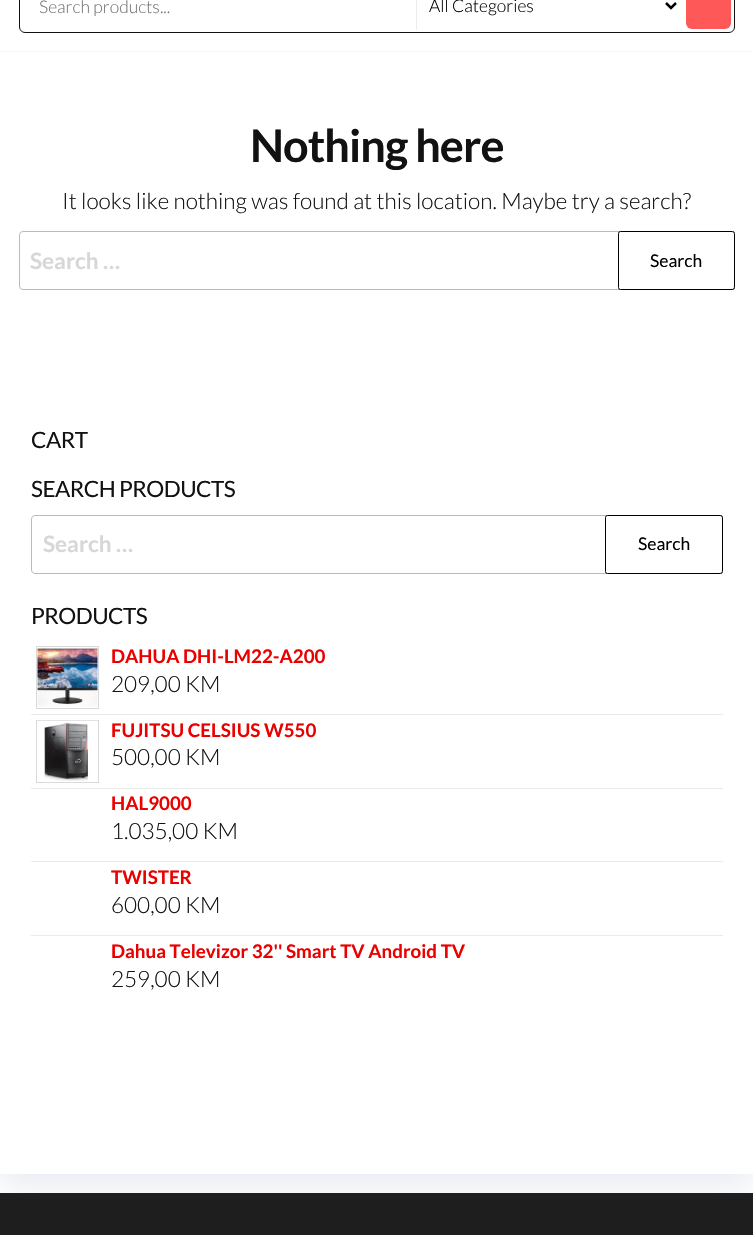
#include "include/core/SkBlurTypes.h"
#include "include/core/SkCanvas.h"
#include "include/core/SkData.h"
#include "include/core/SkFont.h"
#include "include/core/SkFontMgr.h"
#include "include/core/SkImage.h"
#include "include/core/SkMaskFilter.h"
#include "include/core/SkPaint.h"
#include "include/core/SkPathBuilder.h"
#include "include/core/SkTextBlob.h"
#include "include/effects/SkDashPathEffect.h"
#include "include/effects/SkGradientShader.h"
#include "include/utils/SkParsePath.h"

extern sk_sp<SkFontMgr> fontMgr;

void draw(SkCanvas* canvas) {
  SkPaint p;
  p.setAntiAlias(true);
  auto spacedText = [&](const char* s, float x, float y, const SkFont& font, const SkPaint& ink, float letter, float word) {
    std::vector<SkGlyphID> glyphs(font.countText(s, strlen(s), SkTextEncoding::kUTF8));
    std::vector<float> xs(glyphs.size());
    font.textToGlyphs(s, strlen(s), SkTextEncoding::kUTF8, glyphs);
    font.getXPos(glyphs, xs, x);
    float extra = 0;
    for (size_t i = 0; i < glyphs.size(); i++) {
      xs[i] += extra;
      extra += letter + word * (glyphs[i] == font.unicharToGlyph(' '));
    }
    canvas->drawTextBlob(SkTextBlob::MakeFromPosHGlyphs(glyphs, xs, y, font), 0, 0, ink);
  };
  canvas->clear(SK_ColorWHITE);
  p.setColor(SkColorSetRGB(246, 246, 246));
  canvas->drawRect(SkRect::MakeLTRB(0, 51, 753, 52), p);
  p.setStyle(SkPaint::kStroke_Style);
  p.setStrokeWidth(1);
  p.setColor(SkColorSetRGB(18, 18, 18));
  canvas->drawRoundRect(SkRect::MakeLTRB(19.5f, -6.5f, 734.5f, 32.5f), 5.5f, 5.5f, p);
  p.setStyle(SkPaint::kFill_Style);
  p.setColor(SkColorSetRGB(236, 236, 236));
  canvas->drawRect(SkRect::MakeLTRB(416, 0, 417, 30), p);
  p.setStyle(SkPaint::kStroke_Style);
  p.setStrokeWidth(2.5f);
  p.setColor(SK_ColorBLACK);
  canvas->drawPath(SkPathBuilder().moveTo(666, 3).lineTo(671, 8).lineTo(676, 3).detach(), p);
  p.setStyle(SkPaint::kFill_Style);
  p.setColor(SkColorSetRGB(255, 88, 88));
  canvas->drawRoundRect(SkRect::MakeLTRB(686, -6, 731, 29), 6, 6, p);
  p.setStyle(SkPaint::kStroke_Style);
  p.setStrokeWidth(1);
  p.setColor(SkColorSetRGB(187, 187, 187));
  canvas->drawRoundRect(SkRect::MakeLTRB(19.5f, 231.5f, 734.5f, 289.5f), 3.5f, 3.5f, p);
  p.setColor(SK_ColorBLACK);
  canvas->drawRoundRect(SkRect::MakeLTRB(618.5f, 231.5f, 734.5f, 289.5f), 2, 2, p);
  p.setStyle(SkPaint::kFill_Style);
  p.setColor(SkColorSetRGB(30, 30, 30));
  canvas->drawRect(SkRect::MakeLTRB(0, 1193, 753, 1235), p);
  canvas->save();
  canvas->clipRect(SkRect::MakeLTRB(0, 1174, 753, 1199));
  p.setColor(SkColorSetARGB(26, 28, 45, 113));
  p.setMaskFilter(SkMaskFilter::MakeBlur(kNormal_SkBlurStyle, 15.5f));
  canvas->drawRect(SkRect::MakeLTRB(0, 384, 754, 1186), p);
  p.setMaskFilter(nullptr);
  canvas->restore();
  p.setStyle(SkPaint::kStroke_Style);
  p.setColor(SkColorSetRGB(187, 187, 187));
  canvas->drawRoundRect(SkRect::MakeLTRB(31.5f, 515.5f, 722.5f, 573.5f), 3.5f, 3.5f, p);
  p.setColor(SK_ColorBLACK);
  canvas->drawRoundRect(SkRect::MakeLTRB(605.5f, 515.5f, 722.5f, 573.5f), 2, 2, p);
  p.setStyle(SkPaint::kFill_Style);
  p.setColor(SkColorSetRGB(235, 235, 235));
  canvas->drawRect(SkRect::MakeLTRB(31, 714, 723, 715), p);
  p.setStyle(SkPaint::kStroke_Style);
  p.setColor(SkColorSetRGB(217, 217, 217));
  canvas->drawRect(SkRect::MakeLTRB(36.5f, 646.5f, 98.5f, 708.5f), p);
  canvas->drawImageRect(SkImages::DeferredFromEncodedData(SkData::MakeFromFileName("images/1.png")), SkRect::MakeLTRB(37, 647, 98, 707), SkSamplingOptions());
  p.setStyle(SkPaint::kFill_Style);
  p.setColor(SkColorSetRGB(235, 235, 235));
  canvas->drawRect(SkRect::MakeLTRB(31, 788, 723, 789), p);
  p.setStyle(SkPaint::kStroke_Style);
  p.setColor(SkColorSetRGB(217, 217, 217));
  canvas->drawRect(SkRect::MakeLTRB(36.5f, 720.5f, 98.5f, 782.5f), p);
  canvas->drawImageRect(SkImages::DeferredFromEncodedData(SkData::MakeFromFileName("images/2.png")), SkRect::MakeLTRB(37, 720, 98, 781), SkSamplingOptions());
  p.setStyle(SkPaint::kFill_Style);
  p.setColor(SkColorSetRGB(235, 235, 235));
  canvas->drawRect(SkRect::MakeLTRB(31, 861, 723, 862), p);
  canvas->drawRect(SkRect::MakeLTRB(31, 935, 723, 936), p);
  SkFont font1(fontMgr->matchFamilyStyle("Lato", SkFontStyle(300, SkFontStyle::kNormal_Width, SkFontStyle::kUpright_Slant)), 17.5f);
  font1.setSubpixel(true);
  p.setColor(SkColorSetRGB(117, 117, 117));
  canvas->drawString("Search products...", 39, 13, font1, p);
  p.setColor(SK_ColorBLACK);
  canvas->drawString("All Categories", 429, 12, font1, p);
  SkFont font2(fontMgr->matchFamilyStyle("Lato", SkFontStyle::Bold()), 45);
  font2.setSubpixel(true);
  p.setColor(SkColorSetRGB(18, 18, 18));
  spacedText("Nothing here", 250, 162, font2, p, -0.9f, 0);
  SkFont font3(fontMgr->matchFamilyStyle("Lato", SkFontStyle(300, SkFontStyle::kNormal_Width, SkFontStyle::kUpright_Slant)), 22.5f);
  font3.setSubpixel(true);
  canvas->drawString("It looks like nothing was found at this location. Maybe try a search?", 62, 209, font3, p);
  SkFont font4(fontMgr->matchFamilyStyle("Lato", SkFontStyle::Bold()), 22.5f);
  font4.setSubpixel(true);
  p.setColor(SkColorSetRGB(215, 215, 215));
  canvas->drawString("Search …", 30, 269, font4, p);
  SkFont font5(fontMgr->matchFamilyStyle("Lato", SkFontStyle::Normal()), 17.5f);
  font5.setSubpixel(true);
  p.setColor(SK_ColorBLACK);
  canvas->drawString("Search", 650, 267, font5, p);
  SkFont font6(fontMgr->matchFamilyStyle("Lato", SkFontStyle::Normal()), 22.5f);
  font6.setSubpixel(true);
  p.setColor(SkColorSetRGB(18, 18, 18));
  spacedText("CART", 31, 448, font6, p, -0.5f, 0);
  spacedText("SEARCH PRODUCTS", 31, 497, font6, p, -0.5f, 0);
  p.setColor(SkColorSetRGB(215, 215, 215));
  canvas->drawString("Search …", 43, 552, font4, p);
  p.setColor(SK_ColorBLACK);
  canvas->drawString("Search", 638, 550, font5, p);
  p.setColor(SkColorSetRGB(18, 18, 18));
  spacedText("PRODUCTS", 31, 624, font6, p, -0.5f, 0);
  SkFont font7(fontMgr->matchFamilyStyle("Lato", SkFontStyle::Bold()), 18.75f);
  font7.setSubpixel(true);
  p.setColor(SkColorSetRGB(235, 0, 0));
  canvas->drawString("DAHUA DHI-LM22-A200", 111, 663, font7, p);
  p.setColor(SkColorSetRGB(18, 18, 18));
  canvas->drawString("209,00 KM", 111, 692, font3, p);
  p.setColor(SkColorSetRGB(235, 0, 0));
  canvas->drawString("FUJITSU CELSIUS W550", 111, 737, font7, p);
  p.setColor(SkColorSetRGB(18, 18, 18));
  canvas->drawString("500,00 KM", 111, 765, font3, p);
  p.setColor(SkColorSetRGB(235, 0, 0));
  canvas->drawString("HAL9000", 111, 810, font7, p);
  p.setColor(SkColorSetRGB(18, 18, 18));
  canvas->drawString("1.035,00 KM", 111, 839, font3, p);
  p.setColor(SkColorSetRGB(235, 0, 0));
  canvas->drawString("TWISTER", 111, 884, font7, p);
  p.setColor(SkColorSetRGB(18, 18, 18));
  canvas->drawString("600,00 KM", 111, 913, font3, p);
  p.setColor(SkColorSetRGB(235, 0, 0));
  canvas->drawString("Dahua Televizor 32'' Smart TV Android TV", 111, 958, font7, p);
  p.setColor(SkColorSetRGB(18, 18, 18));
  canvas->drawString("259,00 KM", 111, 987, font3, p);
}
